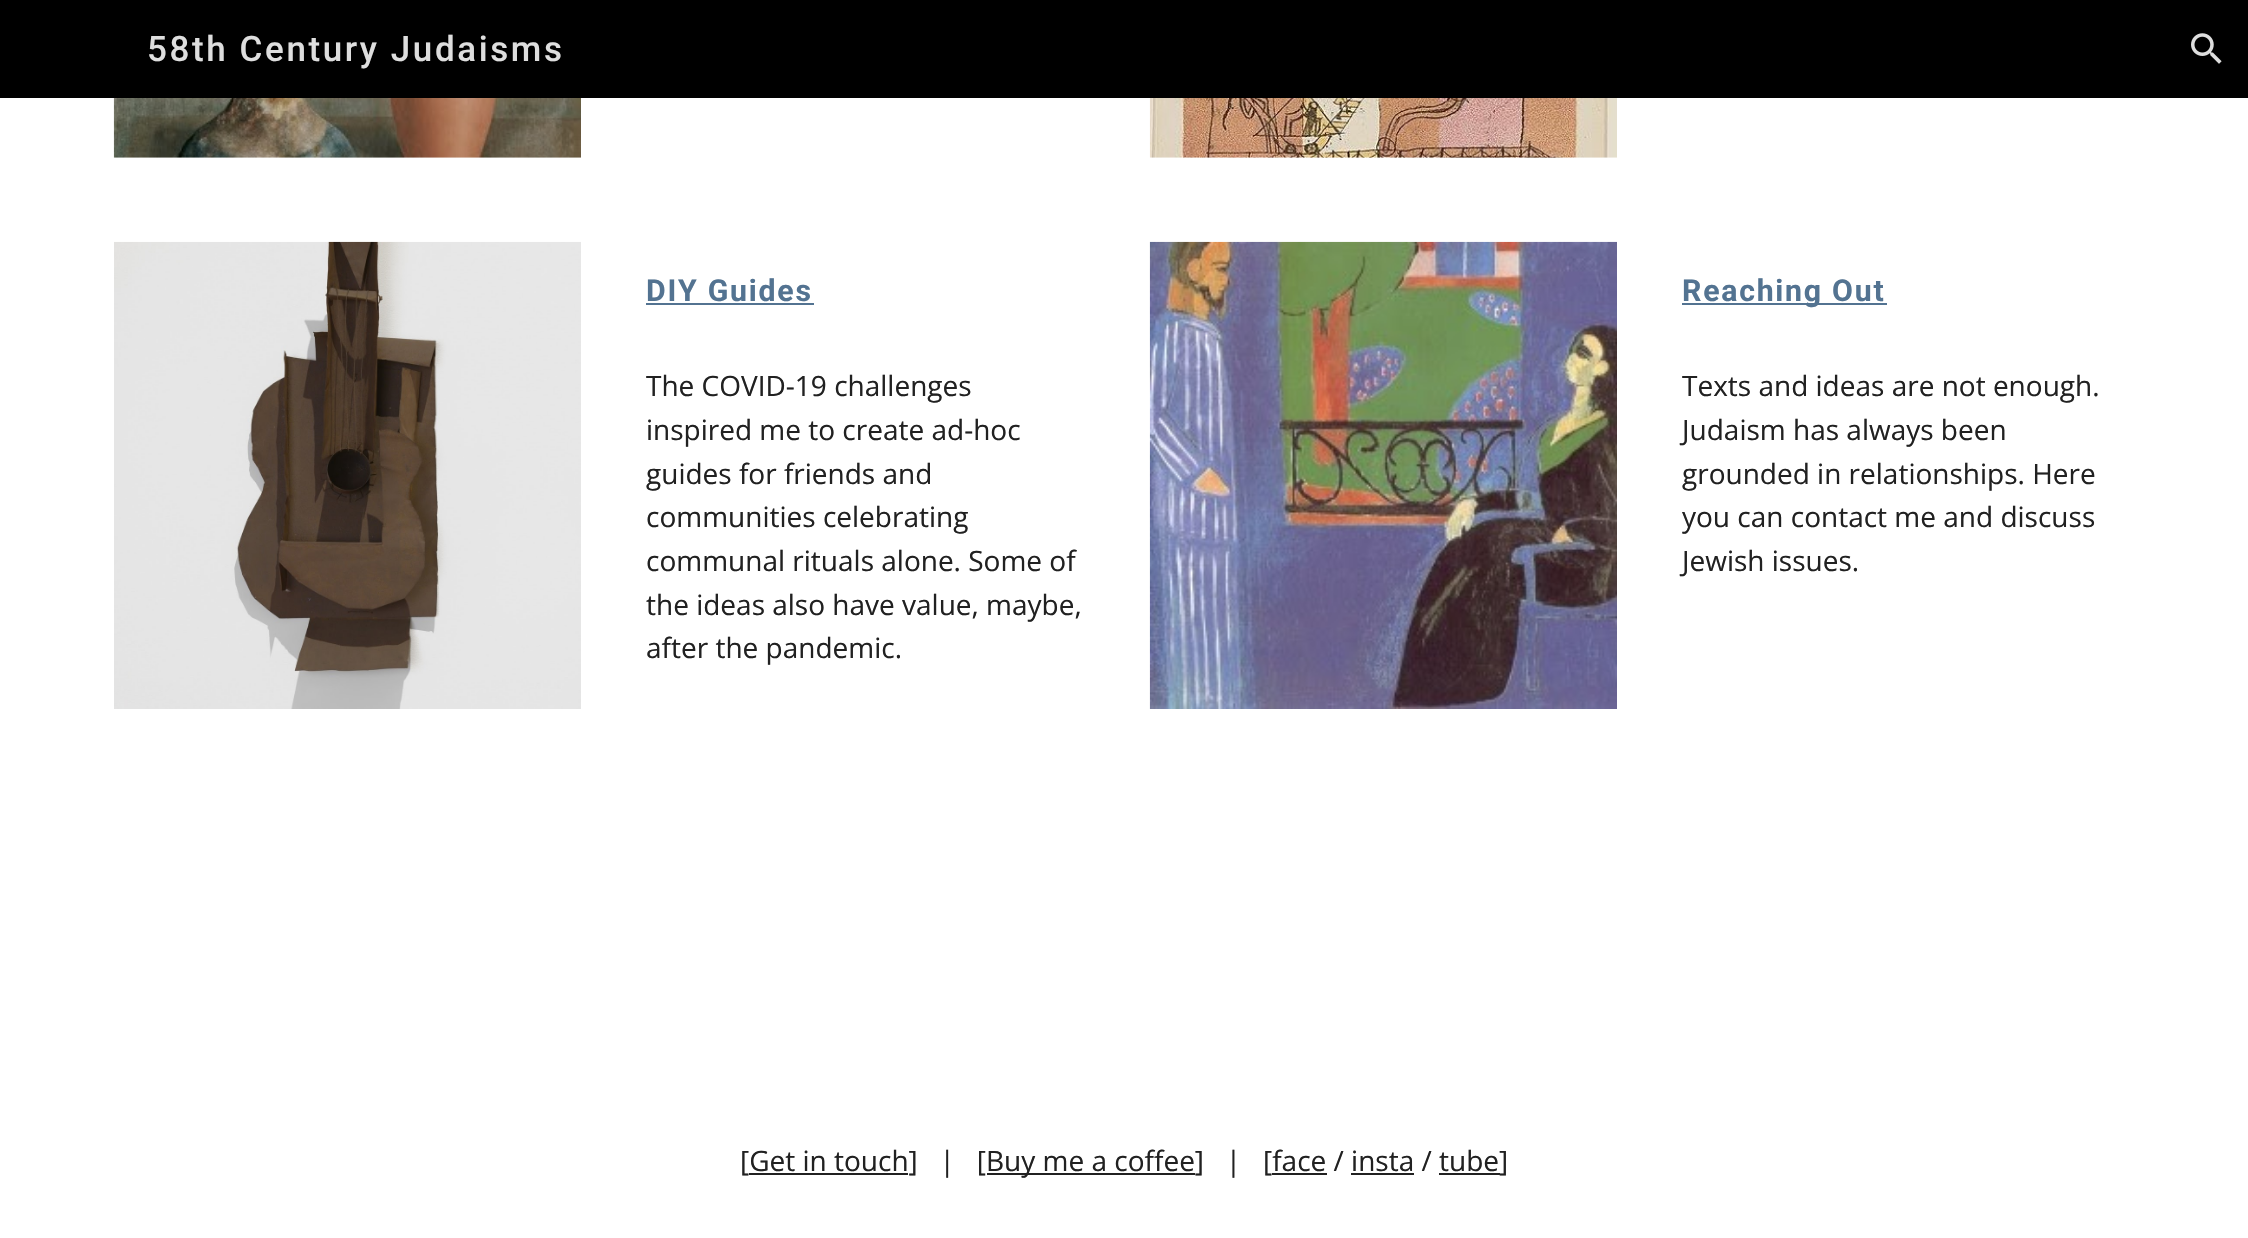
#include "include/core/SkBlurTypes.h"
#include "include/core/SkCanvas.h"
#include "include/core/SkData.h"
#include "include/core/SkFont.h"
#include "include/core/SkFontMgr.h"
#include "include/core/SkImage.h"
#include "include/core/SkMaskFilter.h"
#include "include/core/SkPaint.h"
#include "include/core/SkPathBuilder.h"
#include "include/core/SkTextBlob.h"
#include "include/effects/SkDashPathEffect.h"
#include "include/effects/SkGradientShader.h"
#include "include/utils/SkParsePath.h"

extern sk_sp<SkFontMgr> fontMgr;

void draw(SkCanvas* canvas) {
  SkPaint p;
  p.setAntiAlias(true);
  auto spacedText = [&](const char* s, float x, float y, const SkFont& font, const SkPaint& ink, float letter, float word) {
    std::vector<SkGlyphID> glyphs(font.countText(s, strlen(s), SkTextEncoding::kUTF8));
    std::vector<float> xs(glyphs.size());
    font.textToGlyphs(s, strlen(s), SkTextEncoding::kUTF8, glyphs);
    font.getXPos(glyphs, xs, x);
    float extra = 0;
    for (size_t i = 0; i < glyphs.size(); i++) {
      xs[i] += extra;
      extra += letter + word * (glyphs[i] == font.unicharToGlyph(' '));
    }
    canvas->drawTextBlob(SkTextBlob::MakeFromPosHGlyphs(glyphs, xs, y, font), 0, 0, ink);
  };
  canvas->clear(SK_ColorWHITE);
  p.setColor(SK_ColorBLACK);
  canvas->drawRect(SkRect::MakeLTRB(0, 0, 2248, 98), p);
  canvas->drawImageRect(SkImages::DeferredFromEncodedData(SkData::MakeFromFileName("images/1.png")), SkRect::MakeLTRB(2191, 33, 2222, 64), SkSamplingOptions());
  canvas->drawImageRect(SkImages::DeferredFromEncodedData(SkData::MakeFromFileName("images/2.png")), SkRect::MakeLTRB(113, 98, 581, 158), SkSamplingOptions());
  canvas->drawImageRect(SkImages::DeferredFromEncodedData(SkData::MakeFromFileName("images/3.png")), SkRect::MakeLTRB(1149, 98, 1617, 158), SkSamplingOptions());
  canvas->drawImageRect(SkImages::DeferredFromEncodedData(SkData::MakeFromFileName("images/4.png")), SkRect::MakeLTRB(114, 241, 581, 709), SkSamplingOptions());
  p.setColor(SkColorSetRGB(83, 115, 145));
  canvas->drawRect(SkRect::MakeLTRB(646, 303, 814, 305), p);
  canvas->drawImageRect(SkImages::DeferredFromEncodedData(SkData::MakeFromFileName("images/5.png")), SkRect::MakeLTRB(1149, 241, 1617, 709), SkSamplingOptions());
  canvas->drawRect(SkRect::MakeLTRB(1682, 303, 1887, 305), p);
  p.setColor(SkColorSetRGB(33, 33, 33));
  canvas->drawRect(SkRect::MakeLTRB(987, 1173, 1195, 1175), p);
  canvas->drawRect(SkRect::MakeLTRB(749, 1173, 908, 1175), p);
  canvas->drawRect(SkRect::MakeLTRB(1272, 1173, 1327, 1175), p);
  canvas->drawRect(SkRect::MakeLTRB(1351, 1173, 1414, 1175), p);
  canvas->drawRect(SkRect::MakeLTRB(1439, 1173, 1500, 1175), p);
  SkFont font1(fontMgr->matchFamilyStyle("Roboto", SkFontStyle(500, SkFontStyle::kNormal_Width, SkFontStyle::kUpright_Slant)), 35);
  font1.setSubpixel(true);
  p.setColor(SkColorSetRGB(222, 222, 222));
  spacedText("58th Century Judaisms", 147, 61, font1, p, 2.6f, 0);
  SkFont font2(fontMgr->matchFamilyStyle("Roboto", SkFontStyle::Bold()), 30.25f);
  font2.setSubpixel(true);
  p.setColor(SkColorSetRGB(83, 115, 145));
  spacedText("DIY Guides", 646, 301, font2, p, 1.75f, 0);
  SkFont font3(fontMgr->matchFamilyStyle("Open Sans", SkFontStyle::Normal()), 28);
  font3.setSubpixel(true);
  p.setColor(SkColorSetRGB(33, 33, 33));
  canvas->drawString("The COVID-19 challenges", 646, 396, font3, p);
  canvas->drawString("inspired me to create ad-hoc", 646, 440, font3, p);
  canvas->drawString("guides for friends and", 646, 484, font3, p);
  canvas->drawString("communities celebrating", 646, 527, font3, p);
  canvas->drawString("communal rituals alone. Some of", 646, 571, font3, p);
  canvas->drawString("the ideas also have value, maybe,", 646, 615, font3, p);
  canvas->drawString("after the pandemic.", 646, 658, font3, p);
  p.setColor(SkColorSetRGB(83, 115, 145));
  spacedText("Reaching Out", 1682, 301, font2, p, 1.75f, 0);
  p.setColor(SkColorSetRGB(33, 33, 33));
  canvas->drawString("Texts and ideas are not enough.", 1682, 396, font3, p);
  canvas->drawString("Judaism has always been", 1682, 440, font3, p);
  canvas->drawString("grounded in relationships. Here", 1682, 484, font3, p);
  canvas->drawString("you can contact me and discuss", 1682, 527, font3, p);
  canvas->drawString("Jewish issues.", 1682, 571, font3, p);
  canvas->drawString("[Get in touch]   |   [", 740, 1171, font3, p);
  canvas->drawString("Buy me a coffee]   |   [face / insta / tube]", 986, 1171, font3, p);
}
